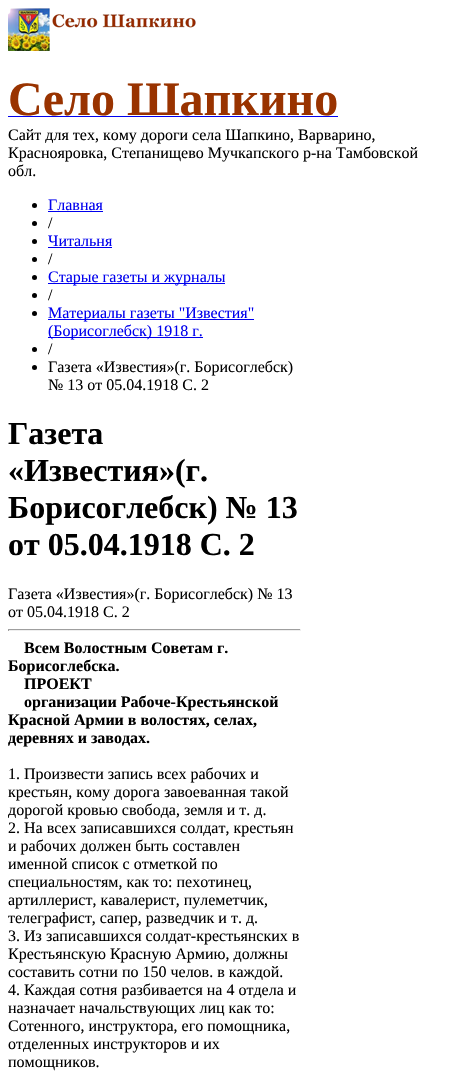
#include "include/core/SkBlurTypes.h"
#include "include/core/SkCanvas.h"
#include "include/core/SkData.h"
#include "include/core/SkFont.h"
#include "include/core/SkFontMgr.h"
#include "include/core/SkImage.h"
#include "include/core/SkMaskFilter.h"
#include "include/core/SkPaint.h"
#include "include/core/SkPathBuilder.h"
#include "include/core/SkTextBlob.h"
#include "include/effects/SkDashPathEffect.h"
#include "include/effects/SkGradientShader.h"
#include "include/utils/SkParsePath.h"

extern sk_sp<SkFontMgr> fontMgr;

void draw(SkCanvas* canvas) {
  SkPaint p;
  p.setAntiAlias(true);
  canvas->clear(SK_ColorWHITE);
  canvas->drawImageRect(SkImages::DeferredFromEncodedData(SkData::MakeFromFileName("images/1.png")), SkRect::MakeLTRB(8, 8, 196, 51), SkSamplingOptions());
  p.setColor(SkColorSetRGB(0, 0, 238));
  canvas->drawRect(SkRect::MakeLTRB(8, 116, 338, 117), p);
  p.setColor(SK_ColorBLACK);
  canvas->drawCircle(34.5f, 205.5f, 2.5f, p);
  p.setColor(SkColorSetRGB(0, 0, 238));
  canvas->drawRect(SkRect::MakeLTRB(48, 211, 103, 212), p);
  p.setColor(SK_ColorBLACK);
  canvas->drawCircle(34.5f, 223.5f, 2.5f, p);
  canvas->drawCircle(34.5f, 241.5f, 2.5f, p);
  p.setColor(SkColorSetRGB(0, 0, 238));
  canvas->drawRect(SkRect::MakeLTRB(48, 247, 112, 248), p);
  p.setColor(SK_ColorBLACK);
  canvas->drawCircle(34.5f, 259.5f, 2.5f, p);
  canvas->drawCircle(34.5f, 277.5f, 2.5f, p);
  p.setColor(SkColorSetRGB(0, 0, 238));
  canvas->drawRect(SkRect::MakeLTRB(48, 283, 225, 284), p);
  p.setColor(SK_ColorBLACK);
  canvas->drawCircle(34.5f, 295.5f, 2.5f, p);
  canvas->drawCircle(34.5f, 313.5f, 2.5f, p);
  p.setColor(SkColorSetRGB(0, 0, 238));
  canvas->drawRect(SkRect::MakeLTRB(48, 319, 254, 320), p);
  canvas->drawRect(SkRect::MakeLTRB(48, 337, 203, 338), p);
  p.setColor(SK_ColorBLACK);
  canvas->drawCircle(34.5f, 349.5f, 2.5f, p);
  canvas->drawCircle(34.5f, 367.5f, 2.5f, p);
  p.setColor(SkColorSetRGB(159, 159, 159));
  canvas->drawRect(SkRect::MakeLTRB(8, 629, 301, 630), p);
  p.setColor(SkColorSetRGB(238, 238, 238));
  canvas->drawRect(SkRect::MakeLTRB(300, 629, 301, 631), p);
  canvas->drawRect(SkRect::MakeLTRB(8, 630, 301, 631), p);
  p.setColor(SkColorSetRGB(159, 159, 159));
  canvas->drawRect(SkRect::MakeLTRB(8, 629, 9, 631), p);
  SkFont font1(fontMgr->matchFamilyStyle("Liberation Serif", SkFontStyle::Bold()), 48);
  font1.setSubpixel(true);
  p.setColor(SkColorSetRGB(153, 51, 0));
  canvas->drawString("Село Шапкино", 8, 115, font1, p);
  SkFont font2(fontMgr->matchFamilyStyle("Liberation Serif", SkFontStyle::Normal()), 16);
  font2.setSubpixel(true);
  p.setColor(SK_ColorBLACK);
  canvas->drawString("Сайт для тех, кому дороги села Шапкино, Варварино,", 8, 140, font2, p);
  canvas->drawString("Краснояровка, Степанищево Мучкапского р-на Тамбовской", 8, 158, font2, p);
  canvas->drawString("обл.", 8, 176, font2, p);
  p.setColor(SkColorSetRGB(0, 0, 238));
  canvas->drawString("Главная", 48, 210, font2, p);
  p.setColor(SK_ColorBLACK);
  canvas->drawString("/", 48, 228, font2, p);
  p.setColor(SkColorSetRGB(0, 0, 238));
  canvas->drawString("Читальня", 48, 246, font2, p);
  p.setColor(SK_ColorBLACK);
  canvas->drawString("/", 48, 264, font2, p);
  p.setColor(SkColorSetRGB(0, 0, 238));
  canvas->drawString("Старые газеты и журналы", 48, 282, font2, p);
  p.setColor(SK_ColorBLACK);
  canvas->drawString("/", 48, 300, font2, p);
  p.setColor(SkColorSetRGB(0, 0, 238));
  canvas->drawString("Материалы газеты \"Известия\"", 48, 318, font2, p);
  canvas->drawString("(Борисоглебск) 1918 г.", 48, 336, font2, p);
  p.setColor(SK_ColorBLACK);
  canvas->drawString("/", 48, 354, font2, p);
  canvas->drawString("Газета «Известия»(г. Борисоглебск)", 48, 372, font2, p);
  canvas->drawString("№ 13 от 05.04.1918 С. 2", 48, 390, font2, p);
  SkFont font3(fontMgr->matchFamilyStyle("Liberation Serif", SkFontStyle::Bold()), 32);
  font3.setSubpixel(true);
  canvas->drawString("Газета", 8, 444, font3, p);
  canvas->drawString("«Известия»(г.", 8, 481, font3, p);
  canvas->drawString("Борисоглебск) № 13", 8, 518, font3, p);
  canvas->drawString("от 05.04.1918 С. 2", 8, 555, font3, p);
  canvas->drawString("Газета «Известия»(г. Борисоглебск) № 13", 8, 599, font2, p);
  canvas->drawString("от 05.04.1918 С. 2", 8, 617, font2, p);
  SkFont font4(fontMgr->matchFamilyStyle("Liberation Serif", SkFontStyle::Bold()), 16);
  font4.setSubpixel(true);
  canvas->drawString("Всем Волостным Советам г.", 24, 653, font4, p);
  canvas->drawString("Борисоглебска.", 8, 671, font4, p);
  canvas->drawString("ПРОЕКТ", 24, 689, font4, p);
  canvas->drawString("организации Рабоче-Крестьянской", 24, 707, font4, p);
  canvas->drawString("Красной Армии в волостях, селах,", 8, 725, font4, p);
  canvas->drawString("деревнях и заводах.", 8, 743, font4, p);
  canvas->drawString("1. Произвести запись всех рабочих и", 8, 779, font2, p);
  canvas->drawString("крестьян, кому дорога завоеванная такой", 8, 797, font2, p);
  canvas->drawString("дорогой кровью свобода, земля и т. д.", 8, 815, font2, p);
  canvas->drawString("2. На всех записавшихся солдат, крестьян", 8, 833, font2, p);
  canvas->drawString("и рабочих должен быть составлен", 8, 851, font2, p);
  canvas->drawString("именной список с отметкой по", 8, 869, font2, p);
  canvas->drawString("специальностям, как то: пехотинец,", 8, 887, font2, p);
  canvas->drawString("артиллерист, кавалерист, пулеметчик,", 8, 905, font2, p);
  canvas->drawString("телеграфист, сапер, разведчик и т. д.", 8, 923, font2, p);
  canvas->drawString("3. Из записавшихся солдат-крестьянских в", 8, 941, font2, p);
  canvas->drawString("Крестьянскую Красную Армию, должны", 8, 959, font2, p);
  canvas->drawString("составить сотни по 150 челов. в каждой.", 8, 977, font2, p);
  canvas->drawString("4. Каждая сотня разбивается на 4 отдела и", 8, 995, font2, p);
  canvas->drawString("назначает начальствующих лиц как то:", 8, 1013, font2, p);
  canvas->drawString("Сотенного, инструктора, его помощника,", 8, 1031, font2, p);
  canvas->drawString("отделенных инструкторов и их", 8, 1049, font2, p);
  canvas->drawString("помощников.", 8, 1067, font2, p);
}
